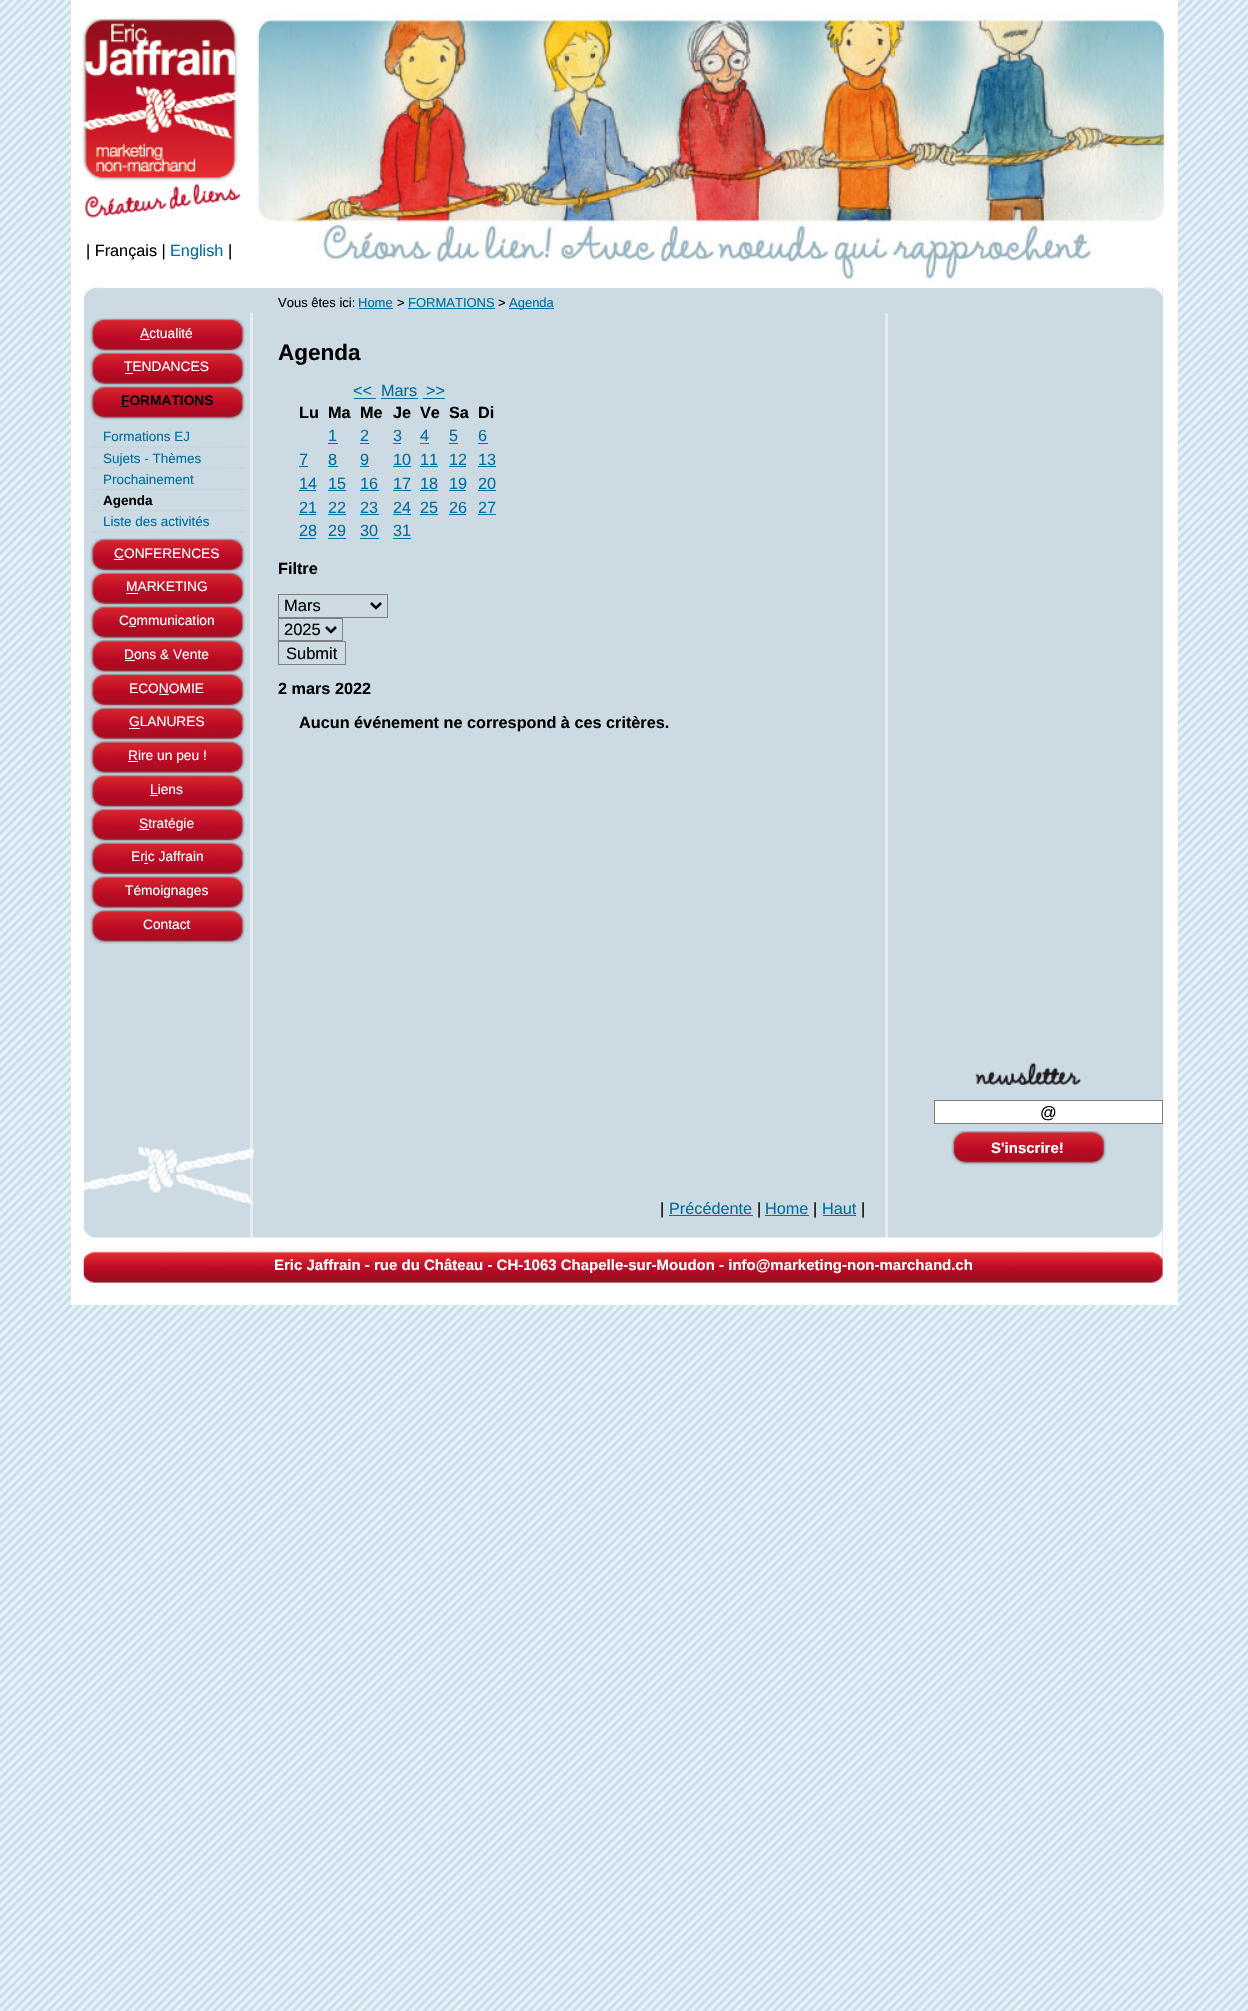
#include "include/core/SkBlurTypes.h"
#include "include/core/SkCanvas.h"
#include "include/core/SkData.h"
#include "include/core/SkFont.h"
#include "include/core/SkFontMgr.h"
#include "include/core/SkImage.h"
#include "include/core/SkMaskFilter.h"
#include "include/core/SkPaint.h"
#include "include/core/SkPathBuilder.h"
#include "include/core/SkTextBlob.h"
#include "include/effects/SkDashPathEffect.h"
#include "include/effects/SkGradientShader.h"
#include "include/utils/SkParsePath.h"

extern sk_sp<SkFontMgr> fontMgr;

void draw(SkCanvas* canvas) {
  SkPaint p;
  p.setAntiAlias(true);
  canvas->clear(SK_ColorWHITE);
  canvas->drawImageRect(SkImages::DeferredFromEncodedData(SkData::MakeFromFileName("images/1.png")), SkRect::MakeLTRB(0, 0, 1248, 2011), SkSamplingOptions());
  p.setColor(SK_ColorWHITE);
  canvas->drawRect(SkRect::MakeLTRB(71, 0, 1178, 1305), p);
  p.setColor(SkColorSetRGB(203, 218, 227));
  canvas->drawRect(SkRect::MakeLTRB(84, 288, 1163, 1283), p);
  canvas->drawImageRect(SkImages::DeferredFromEncodedData(SkData::MakeFromFileName("images/2.png")), SkRect::MakeLTRB(1143, 287, 1163, 297), SkSamplingOptions());
  canvas->drawImageRect(SkImages::DeferredFromEncodedData(SkData::MakeFromFileName("images/3.png")), SkRect::MakeLTRB(256, 12, 1167, 283), SkSamplingOptions());
  p.setColor(SkColorSetRGB(228, 236, 240));
  canvas->drawRect(SkRect::MakeLTRB(250, 313, 253, 1238), p);
  canvas->drawImageRect(SkImages::DeferredFromEncodedData(SkData::MakeFromFileName("images/4.png")), SkRect::MakeLTRB(84, 1146, 255, 1205), SkSamplingOptions());
  canvas->drawImageRect(SkImages::DeferredFromEncodedData(SkData::MakeFromFileName("images/5.png")), SkRect::MakeLTRB(82, 18, 241, 218), SkSamplingOptions());
  canvas->drawRect(SkRect::MakeLTRB(885, 313, 888, 1238), p);
  p.setColor(SkColorSetRGB(0, 110, 159));
  canvas->drawRect(SkRect::MakeLTRB(354, 398, 376, 399), p);
  canvas->drawRect(SkRect::MakeLTRB(381, 398, 418, 399), p);
  canvas->drawRect(SkRect::MakeLTRB(423, 398, 445, 399), p);
  canvas->drawRect(SkRect::MakeLTRB(328, 443, 338, 444), p);
  canvas->drawRect(SkRect::MakeLTRB(360, 443, 369, 444), p);
  canvas->drawRect(SkRect::MakeLTRB(393, 443, 401, 444), p);
  canvas->drawRect(SkRect::MakeLTRB(420, 443, 429, 444), p);
  canvas->drawRect(SkRect::MakeLTRB(449, 443, 458, 444), p);
  canvas->drawRect(SkRect::MakeLTRB(478, 443, 488, 444), p);
  canvas->drawRect(SkRect::MakeLTRB(299, 466, 308, 467), p);
  canvas->drawRect(SkRect::MakeLTRB(328, 466, 338, 467), p);
  canvas->drawRect(SkRect::MakeLTRB(360, 466, 369, 467), p);
  canvas->drawRect(SkRect::MakeLTRB(393, 466, 411, 467), p);
  canvas->drawRect(SkRect::MakeLTRB(420, 466, 438, 467), p);
  canvas->drawRect(SkRect::MakeLTRB(449, 466, 466, 467), p);
  canvas->drawRect(SkRect::MakeLTRB(478, 466, 496, 467), p);
  canvas->drawRect(SkRect::MakeLTRB(299, 490, 316, 491), p);
  canvas->drawRect(SkRect::MakeLTRB(328, 490, 346, 491), p);
  canvas->drawRect(SkRect::MakeLTRB(360, 490, 379, 491), p);
  canvas->drawRect(SkRect::MakeLTRB(393, 490, 411, 491), p);
  canvas->drawRect(SkRect::MakeLTRB(420, 490, 438, 491), p);
  canvas->drawRect(SkRect::MakeLTRB(449, 490, 466, 491), p);
  canvas->drawRect(SkRect::MakeLTRB(478, 490, 496, 491), p);
  canvas->drawRect(SkRect::MakeLTRB(299, 514, 316, 515), p);
  canvas->drawRect(SkRect::MakeLTRB(328, 514, 346, 515), p);
  canvas->drawRect(SkRect::MakeLTRB(360, 514, 379, 515), p);
  canvas->drawRect(SkRect::MakeLTRB(393, 514, 411, 515), p);
  canvas->drawRect(SkRect::MakeLTRB(420, 514, 438, 515), p);
  canvas->drawRect(SkRect::MakeLTRB(449, 514, 466, 515), p);
  canvas->drawRect(SkRect::MakeLTRB(478, 514, 496, 515), p);
  canvas->drawRect(SkRect::MakeLTRB(299, 538, 316, 539), p);
  canvas->drawRect(SkRect::MakeLTRB(328, 538, 346, 539), p);
  canvas->drawRect(SkRect::MakeLTRB(360, 538, 379, 539), p);
  canvas->drawRect(SkRect::MakeLTRB(393, 538, 411, 539), p);
  p.setStyle(SkPaint::kStroke_Style);
  p.setStrokeWidth(1);
  p.setColor(SkColorSetRGB(128, 128, 128));
  canvas->drawRect(SkRect::MakeLTRB(278.5f, 594.5f, 387.5f, 617.5f), p);
  p.setStrokeWidth(2.5f);
  p.setColor(SK_ColorBLACK);
  canvas->drawPath(SkPathBuilder().moveTo(371, 603).lineTo(376, 608).lineTo(381, 603).detach(), p);
  p.setStrokeWidth(1);
  p.setColor(SkColorSetRGB(128, 128, 128));
  canvas->drawRect(SkRect::MakeLTRB(278.5f, 618.5f, 342.5f, 640.5f), p);
  p.setStrokeWidth(2.5f);
  p.setColor(SK_ColorBLACK);
  canvas->drawPath(SkPathBuilder().moveTo(326, 627).lineTo(331, 632).lineTo(336, 627).detach(), p);
  p.setStrokeWidth(1);
  p.setColor(SkColorSetRGB(128, 128, 128));
  canvas->drawRect(SkRect::MakeLTRB(278.5f, 641.5f, 345.5f, 664.5f), p);
  canvas->drawImageRect(SkImages::DeferredFromEncodedData(SkData::MakeFromFileName("images/6.png")), SkRect::MakeLTRB(975, 1062, 1082, 1085), SkSamplingOptions());
  p.setStyle(SkPaint::kFill_Style);
  p.setColor(SK_ColorWHITE);
  canvas->drawRect(SkRect::MakeLTRB(934.5f, 1100.5f, 1162.5f, 1123.5f), p);
  p.setStyle(SkPaint::kStroke_Style);
  p.setColor(SkColorSetRGB(128, 128, 128));
  canvas->drawRect(SkRect::MakeLTRB(934.5f, 1100.5f, 1162.5f, 1123.5f), p);
  canvas->drawImageRect(SkImages::DeferredFromEncodedData(SkData::MakeFromFileName("images/7.png")), SkRect::MakeLTRB(951, 1131, 1107, 1165), SkSamplingOptions());
  p.setStyle(SkPaint::kFill_Style);
  p.setColor(SkColorSetRGB(0, 110, 159));
  canvas->drawRect(SkRect::MakeLTRB(669, 1215, 753, 1216), p);
  canvas->drawRect(SkRect::MakeLTRB(765, 1215, 809, 1216), p);
  canvas->drawRect(SkRect::MakeLTRB(823, 1215, 856, 1216), p);
  canvas->drawImageRect(SkImages::DeferredFromEncodedData(SkData::MakeFromFileName("images/8.png")), SkRect::MakeLTRB(83, 1226, 1163, 1283), SkSamplingOptions());
  canvas->drawRect(SkRect::MakeLTRB(359, 308, 393, 309), p);
  canvas->drawRect(SkRect::MakeLTRB(408, 308, 495, 309), p);
  canvas->drawRect(SkRect::MakeLTRB(509, 308, 554, 309), p);
  canvas->drawImageRect(SkImages::DeferredFromEncodedData(SkData::MakeFromFileName("images/9.png")), SkRect::MakeLTRB(83, 287, 103, 299), SkSamplingOptions());
  canvas->drawImageRect(SkImages::DeferredFromEncodedData(SkData::MakeFromFileName("images/10.png")), SkRect::MakeLTRB(89, 318, 245, 353), SkSamplingOptions());
  p.setColor(SK_ColorWHITE);
  canvas->drawRect(SkRect::MakeLTRB(140, 339, 150, 340), p);
  canvas->drawImageRect(SkImages::DeferredFromEncodedData(SkData::MakeFromFileName("images/11.png")), SkRect::MakeLTRB(89, 352, 245, 386), SkSamplingOptions());
  canvas->drawRect(SkRect::MakeLTRB(125, 373, 133, 374), p);
  canvas->drawImageRect(SkImages::DeferredFromEncodedData(SkData::MakeFromFileName("images/12.png")), SkRect::MakeLTRB(89, 386, 245, 420), SkSamplingOptions());
  p.setColor(SK_ColorBLACK);
  canvas->drawRect(SkRect::MakeLTRB(121, 406, 129, 407), p);
  p.setStyle(SkPaint::kStroke_Style);
  p.setStrokeWidth(1.2f);
  p.setColor(SkColorSetRGB(190, 203, 211));
  p.setPathEffect(SkDashPathEffect::Make({{1.25f, 1.25f}}, 0));
  canvas->drawPath(SkPathBuilder().moveTo(92.5f, 447).lineTo(245, 447).detach(), p);
  p.setPathEffect(nullptr);
  p.setPathEffect(SkDashPathEffect::Make({{1.25f, 1.25f}}, 0));
  canvas->drawPath(SkPathBuilder().moveTo(92.5f, 468).lineTo(245, 468).detach(), p);
  p.setPathEffect(nullptr);
  p.setPathEffect(SkDashPathEffect::Make({{1.25f, 1.25f}}, 0));
  canvas->drawPath(SkPathBuilder().moveTo(92.5f, 489.5f).lineTo(245, 489.5f).detach(), p);
  p.setPathEffect(nullptr);
  p.setPathEffect(SkDashPathEffect::Make({{1.25f, 1.25f}}, 0));
  canvas->drawPath(SkPathBuilder().moveTo(92.5f, 510.5f).lineTo(245, 510.5f).detach(), p);
  p.setPathEffect(nullptr);
  p.setPathEffect(SkDashPathEffect::Make({{1.25f, 1.25f}}, 0));
  canvas->drawPath(SkPathBuilder().moveTo(92.5f, 532).lineTo(245, 532).detach(), p);
  p.setPathEffect(nullptr);
  canvas->drawImageRect(SkImages::DeferredFromEncodedData(SkData::MakeFromFileName("images/10.png")), SkRect::MakeLTRB(89, 538, 245, 573), SkSamplingOptions());
  p.setStyle(SkPaint::kFill_Style);
  p.setColor(SK_ColorWHITE);
  canvas->drawRect(SkRect::MakeLTRB(114, 559, 124, 560), p);
  canvas->drawImageRect(SkImages::DeferredFromEncodedData(SkData::MakeFromFileName("images/13.png")), SkRect::MakeLTRB(89, 572, 245, 606), SkSamplingOptions());
  canvas->drawRect(SkRect::MakeLTRB(126, 593, 138, 594), p);
  canvas->drawImageRect(SkImages::DeferredFromEncodedData(SkData::MakeFromFileName("images/12.png")), SkRect::MakeLTRB(89, 606, 245, 640), SkSamplingOptions());
  canvas->drawRect(SkRect::MakeLTRB(129, 626, 136, 627), p);
  canvas->drawImageRect(SkImages::DeferredFromEncodedData(SkData::MakeFromFileName("images/14.png")), SkRect::MakeLTRB(89, 640, 245, 674), SkSamplingOptions());
  canvas->drawRect(SkRect::MakeLTRB(125, 660, 135, 661), p);
  canvas->drawImageRect(SkImages::DeferredFromEncodedData(SkData::MakeFromFileName("images/15.png")), SkRect::MakeLTRB(89, 673, 245, 708), SkSamplingOptions());
  canvas->drawRect(SkRect::MakeLTRB(159, 694, 169, 695), p);
  canvas->drawImageRect(SkImages::DeferredFromEncodedData(SkData::MakeFromFileName("images/11.png")), SkRect::MakeLTRB(89, 707, 245, 741), SkSamplingOptions());
  canvas->drawRect(SkRect::MakeLTRB(129, 728, 140, 729), p);
  canvas->drawImageRect(SkImages::DeferredFromEncodedData(SkData::MakeFromFileName("images/12.png")), SkRect::MakeLTRB(89, 741, 245, 775), SkSamplingOptions());
  canvas->drawRect(SkRect::MakeLTRB(128, 761, 138, 762), p);
  canvas->drawImageRect(SkImages::DeferredFromEncodedData(SkData::MakeFromFileName("images/16.png")), SkRect::MakeLTRB(89, 775, 245, 809), SkSamplingOptions());
  canvas->drawRect(SkRect::MakeLTRB(150, 795, 158, 796), p);
  canvas->drawImageRect(SkImages::DeferredFromEncodedData(SkData::MakeFromFileName("images/15.png")), SkRect::MakeLTRB(89, 808, 245, 843), SkSamplingOptions());
  canvas->drawRect(SkRect::MakeLTRB(139, 829, 149, 830), p);
  canvas->drawImageRect(SkImages::DeferredFromEncodedData(SkData::MakeFromFileName("images/11.png")), SkRect::MakeLTRB(89, 842, 245, 876), SkSamplingOptions());
  canvas->drawRect(SkRect::MakeLTRB(144, 863, 148, 864), p);
  canvas->drawImageRect(SkImages::DeferredFromEncodedData(SkData::MakeFromFileName("images/12.png")), SkRect::MakeLTRB(89, 876, 245, 910), SkSamplingOptions());
  canvas->drawImageRect(SkImages::DeferredFromEncodedData(SkData::MakeFromFileName("images/14.png")), SkRect::MakeLTRB(89, 910, 245, 944), SkSamplingOptions());
  SkFont font1(fontMgr->matchFamilyStyle("Liberation Sans", SkFontStyle::Normal()), 16.25f);
  font1.setSubpixel(true);
  p.setColor(SK_ColorBLACK);
  canvas->drawString("| Français |", 86, 256, font1, p);
  p.setColor(SkColorSetRGB(0, 110, 159));
  canvas->drawString("English", 170, 256, font1, p);
  p.setColor(SK_ColorBLACK);
  canvas->drawString("|", 228, 256, font1, p);
  SkFont font2(fontMgr->matchFamilyStyle("Liberation Sans", SkFontStyle::Bold()), 22.5f);
  font2.setSubpixel(true);
  canvas->drawString("Agenda", 278, 360, font2, p);
  p.setColor(SkColorSetRGB(0, 110, 159));
  canvas->drawString("<<", 353, 396, font1, p);
  canvas->drawString("Mars", 381, 396, font1, p);
  canvas->drawString(">>", 426, 396, font1, p);
  SkFont font3(fontMgr->matchFamilyStyle("Liberation Sans", SkFontStyle::Bold()), 16.25f);
  font3.setSubpixel(true);
  p.setColor(SK_ColorBLACK);
  canvas->drawString("Lu", 299, 418, font3, p);
  canvas->drawString("Ma", 328, 418, font3, p);
  canvas->drawString("Me", 360, 418, font3, p);
  canvas->drawString("Je", 393, 418, font3, p);
  canvas->drawString("Ve", 420, 418, font3, p);
  canvas->drawString("Sa", 449, 418, font3, p);
  canvas->drawString("Di", 478, 418, font3, p);
  p.setColor(SkColorSetRGB(0, 110, 159));
  canvas->drawString("1", 328, 441, font1, p);
  canvas->drawString("2", 360, 441, font1, p);
  canvas->drawString("3", 393, 441, font1, p);
  canvas->drawString("4", 420, 441, font1, p);
  canvas->drawString("5", 449, 441, font1, p);
  canvas->drawString("6", 478, 441, font1, p);
  canvas->drawString("7", 299, 465, font1, p);
  canvas->drawString("8", 328, 465, font1, p);
  canvas->drawString("9", 360, 465, font1, p);
  canvas->drawString("10", 393, 465, font1, p);
  canvas->drawString("11", 420, 465, font1, p);
  canvas->drawString("12", 449, 465, font1, p);
  canvas->drawString("13", 478, 465, font1, p);
  canvas->drawString("14", 299, 489, font1, p);
  canvas->drawString("15", 328, 489, font1, p);
  canvas->drawString("16", 360, 489, font1, p);
  canvas->drawString("17", 393, 489, font1, p);
  canvas->drawString("18", 420, 489, font1, p);
  canvas->drawString("19", 449, 489, font1, p);
  canvas->drawString("20", 478, 489, font1, p);
  canvas->drawString("21", 299, 513, font1, p);
  canvas->drawString("22", 328, 513, font1, p);
  canvas->drawString("23", 360, 513, font1, p);
  canvas->drawString("24", 393, 513, font1, p);
  canvas->drawString("25", 420, 513, font1, p);
  canvas->drawString("26", 449, 513, font1, p);
  canvas->drawString("27", 478, 513, font1, p);
  canvas->drawString("28", 299, 536, font1, p);
  canvas->drawString("29", 328, 536, font1, p);
  canvas->drawString("30", 360, 536, font1, p);
  canvas->drawString("31", 393, 536, font1, p);
  p.setColor(SK_ColorBLACK);
  canvas->drawString("Filtre", 278, 574, font3, p);
  SkFont font4(fontMgr->matchFamilyStyle("Liberation Sans", SkFontStyle::Normal()), 16.5f);
  font4.setSubpixel(true);
  canvas->drawString("Mars", 284, 611, font4, p);
  canvas->drawString("2025", 284, 635, font4, p);
  canvas->drawString("Submit", 286, 659, font4, p);
  canvas->drawString("2 mars 2022", 278, 694, font3, p);
  canvas->drawString("Aucun événement ne correspond à ces critères.", 299, 728, font3, p);
  canvas->drawString("@", 1040, 1118, font4, p);
  SkFont font5(fontMgr->matchFamilyStyle("Liberation Sans", SkFontStyle::Bold()), 15);
  font5.setSubpixel(true);
  p.setColor(SK_ColorWHITE);
  canvas->drawString("S'inscrire!", 991, 1153, font5, p);
  p.setColor(SK_ColorBLACK);
  canvas->drawString("|", 660, 1214, font1, p);
  p.setColor(SkColorSetRGB(0, 110, 159));
  canvas->drawString("Précédente", 669, 1214, font1, p);
  p.setColor(SK_ColorBLACK);
  canvas->drawString("|", 757, 1214, font1, p);
  p.setColor(SkColorSetRGB(0, 110, 159));
  canvas->drawString("Home", 765, 1214, font1, p);
  p.setColor(SK_ColorBLACK);
  canvas->drawString("|", 813, 1214, font1, p);
  p.setColor(SkColorSetRGB(0, 110, 159));
  canvas->drawString("Haut", 822, 1214, font1, p);
  p.setColor(SK_ColorBLACK);
  canvas->drawString("|", 861, 1214, font1, p);
  p.setColor(SK_ColorWHITE);
  canvas->drawString("Eric Jaffrain - rue du Château - CH-1063 Chapelle-sur-Moudon - info@marketing-non-marchand.ch", 274, 1270, font5, p);
  SkFont font6(fontMgr->matchFamilyStyle("Liberation Sans", SkFontStyle::Normal()), 13);
  font6.setSubpixel(true);
  p.setColor(SK_ColorBLACK);
  canvas->drawString("Vous êtes ici:", 278, 307, font6, p);
  p.setColor(SkColorSetRGB(0, 110, 159));
  canvas->drawString("Home", 358, 307, font6, p);
  p.setColor(SK_ColorBLACK);
  canvas->drawString(">", 397, 307, font6, p);
  p.setColor(SkColorSetRGB(0, 110, 159));
  canvas->drawString("FORMATIONS", 408, 307, font6, p);
  p.setColor(SK_ColorBLACK);
  canvas->drawString(">", 498, 307, font6, p);
  p.setColor(SkColorSetRGB(0, 110, 159));
  canvas->drawString("Agenda", 509, 307, font6, p);
  SkFont font7(fontMgr->matchFamilyStyle("Liberation Sans", SkFontStyle::Normal()), 13.75f);
  font7.setSubpixel(true);
  p.setColor(SK_ColorWHITE);
  canvas->drawString("Actualité", 140, 338, font7, p);
  canvas->drawString("TENDANCES", 124, 371, font7, p);
  SkFont font8(fontMgr->matchFamilyStyle("Liberation Sans", SkFontStyle::Bold()), 13.75f);
  font8.setSubpixel(true);
  p.setColor(SK_ColorBLACK);
  canvas->drawString("FORMATIONS", 121, 405, font8, p);
  SkFont font9(fontMgr->matchFamilyStyle("Liberation Sans", SkFontStyle::Normal()), 13.5f);
  font9.setSubpixel(true);
  p.setColor(SkColorSetRGB(0, 110, 159));
  canvas->drawString("Formations EJ", 103, 441, font9, p);
  canvas->drawString("Sujets - Thèmes", 103, 463, font9, p);
  canvas->drawString("Prochainement", 103, 484, font9, p);
  SkFont font10(fontMgr->matchFamilyStyle("Liberation Sans", SkFontStyle::Bold()), 13.5f);
  font10.setSubpixel(true);
  p.setColor(SK_ColorBLACK);
  canvas->drawString("Agenda", 103, 505, font10, p);
  p.setColor(SkColorSetRGB(0, 110, 159));
  canvas->drawString("Liste des activités", 103, 526, font9, p);
  p.setColor(SK_ColorWHITE);
  canvas->drawString("CONFERENCES", 114, 558, font7, p);
  canvas->drawString("MARKETING", 126, 591, font7, p);
  canvas->drawString("Communication", 119, 625, font7, p);
  canvas->drawString("Dons & Vente", 124, 659, font7, p);
  canvas->drawString("ECONOMIE", 129, 693, font7, p);
  canvas->drawString("GLANURES", 129, 726, font7, p);
  canvas->drawString("Rire un peu !", 128, 760, font7, p);
  canvas->drawString("Liens", 150, 794, font7, p);
  canvas->drawString("Stratégie", 139, 828, font7, p);
  canvas->drawString("Eric Jaffrain", 131, 861, font7, p);
  canvas->drawString("Témoignages", 125, 895, font7, p);
  canvas->drawString("Contact", 143, 929, font7, p);
}
